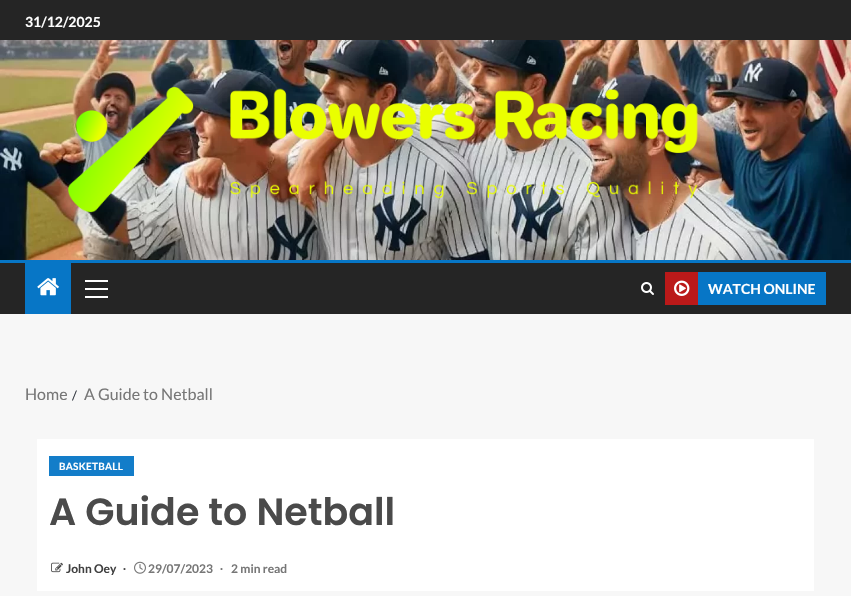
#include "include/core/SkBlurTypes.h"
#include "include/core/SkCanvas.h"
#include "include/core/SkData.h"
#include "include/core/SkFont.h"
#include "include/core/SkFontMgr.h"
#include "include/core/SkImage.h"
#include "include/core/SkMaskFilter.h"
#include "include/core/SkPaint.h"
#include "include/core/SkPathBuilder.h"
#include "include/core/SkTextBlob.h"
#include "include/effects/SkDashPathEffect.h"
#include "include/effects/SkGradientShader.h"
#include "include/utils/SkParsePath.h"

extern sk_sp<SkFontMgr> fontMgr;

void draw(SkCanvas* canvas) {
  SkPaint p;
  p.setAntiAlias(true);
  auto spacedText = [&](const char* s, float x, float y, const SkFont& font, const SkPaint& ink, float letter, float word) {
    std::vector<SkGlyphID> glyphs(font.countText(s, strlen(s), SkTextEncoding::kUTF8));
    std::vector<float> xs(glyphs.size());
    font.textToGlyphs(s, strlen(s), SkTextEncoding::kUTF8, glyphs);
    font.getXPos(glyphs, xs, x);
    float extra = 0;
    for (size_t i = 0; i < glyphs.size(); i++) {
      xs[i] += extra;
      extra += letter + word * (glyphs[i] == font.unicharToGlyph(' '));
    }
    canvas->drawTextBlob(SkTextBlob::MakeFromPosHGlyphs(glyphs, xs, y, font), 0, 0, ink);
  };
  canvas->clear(SkColorSetRGB(247, 247, 247));
  p.setColor(SkColorSetRGB(37, 37, 37));
  canvas->drawRect(SkRect::MakeLTRB(0, 0, 851, 40), p);
  canvas->drawImageRect(SkImages::DeferredFromEncodedData(SkData::MakeFromFileName("images/1.png")), SkRect::MakeLTRB(0, 40, 851, 260), SkSamplingOptions());
  canvas->drawImageRect(SkImages::DeferredFromEncodedData(SkData::MakeFromFileName("images/2.png")), SkRect::MakeLTRB(68, 87, 698, 213), SkSamplingOptions());
  canvas->drawRect(SkRect::MakeLTRB(0, 263, 851, 314), p);
  p.setColor(SkColorSetRGB(7, 118, 198));
  canvas->drawRect(SkRect::MakeLTRB(0, 260, 851, 263), p);
  canvas->drawRect(SkRect::MakeLTRB(25, 263, 71, 314), p);
  canvas->drawImageRect(SkImages::DeferredFromEncodedData(SkData::MakeFromFileName("images/3.png")), SkRect::MakeLTRB(37, 278, 59, 296), SkSamplingOptions());
  p.setColor(SK_ColorWHITE);
  canvas->drawRect(SkRect::MakeLTRB(85, 288, 108, 290), p);
  canvas->drawRect(SkRect::MakeLTRB(85, 280, 108, 282), p);
  canvas->drawRect(SkRect::MakeLTRB(85, 296, 108, 298), p);
  canvas->drawImageRect(SkImages::DeferredFromEncodedData(SkData::MakeFromFileName("images/4.png")), SkRect::MakeLTRB(641, 282, 654, 295), SkSamplingOptions());
  p.setColor(SkColorSetRGB(187, 25, 25));
  canvas->drawRect(SkRect::MakeLTRB(665, 272, 698, 305), p);
  canvas->drawImageRect(SkImages::DeferredFromEncodedData(SkData::MakeFromFileName("images/5.png")), SkRect::MakeLTRB(674, 280, 690, 296), SkSamplingOptions());
  p.setColor(SkColorSetRGB(7, 118, 198));
  canvas->drawRect(SkRect::MakeLTRB(698, 272, 826, 305), p);
  p.setColor(SK_ColorWHITE);
  canvas->drawRect(SkRect::MakeLTRB(37, 439, 814, 591), p);
  p.setColor(SkColorSetRGB(19, 125, 201));
  canvas->drawRect(SkRect::MakeLTRB(49, 456, 134, 476), p);
  canvas->drawImageRect(SkImages::DeferredFromEncodedData(SkData::MakeFromFileName("images/6.png")), SkRect::MakeLTRB(51, 562, 63, 573), SkSamplingOptions());
  canvas->drawImageRect(SkImages::DeferredFromEncodedData(SkData::MakeFromFileName("images/7.png")), SkRect::MakeLTRB(134, 561, 146, 574), SkSamplingOptions());
  SkFont font1(fontMgr->matchFamilyStyle("Lato", SkFontStyle::Bold()), 14);
  font1.setSubpixel(true);
  p.setColor(SK_ColorWHITE);
  canvas->drawString("31/12/2025", 25, 27, font1, p);
  canvas->drawString("WATCH ONLINE", 708, 294, font1, p);
  SkFont font2(fontMgr->matchFamilyStyle("Lato", SkFontStyle::Normal()), 16);
  font2.setSubpixel(true);
  p.setColor(SkColorSetRGB(119, 119, 119));
  canvas->drawString("Home", 25, 400, font2, p);
  SkFont font3(fontMgr->matchFamilyStyle("Lato", SkFontStyle::Normal()), 13);
  font3.setSubpixel(true);
  p.setColor(SkColorSetRGB(57, 62, 70));
  canvas->drawString("/", 72, 400, font3, p);
  p.setColor(SkColorSetRGB(119, 119, 119));
  canvas->drawString("A Guide to Netball", 84, 400, font2, p);
  SkFont font4(fontMgr->matchFamilyStyle("Lato", SkFontStyle::Bold()), 10);
  font4.setSubpixel(true);
  p.setColor(SK_ColorWHITE);
  spacedText("BASKETBALL", 59, 470, font4, p, 0.25f, 0);
  SkFont font5(fontMgr->matchFamilyStyle("Poppins", SkFontStyle(600, SkFontStyle::kNormal_Width, SkFontStyle::kUpright_Slant)), 38);
  font5.setSubpixel(true);
  p.setColor(SkColorSetRGB(74, 74, 74));
  canvas->drawString("A Guide to Netball", 49, 525, font5, p);
  SkFont font6(fontMgr->matchFamilyStyle("Lato", SkFontStyle::Bold()), 12);
  font6.setSubpixel(true);
  p.setColor(SkColorSetRGB(64, 64, 64));
  canvas->drawString("John Oey", 66, 573, font6, p);
  SkFont font7(fontMgr->matchFamilyStyle("Liberation Serif", SkFontStyle::Bold()), 12);
  font7.setSubpixel(true);
  p.setColor(SkColorSetRGB(74, 74, 74));
  canvas->drawString("∙", 123, 573, font7, p);
  p.setColor(SkColorSetRGB(119, 119, 119));
  canvas->drawString("29/07/2023", 148, 573, font6, p);
  canvas->drawString("∙", 220, 573, font7, p);
  canvas->drawString("2 min read", 231, 573, font6, p);
}
